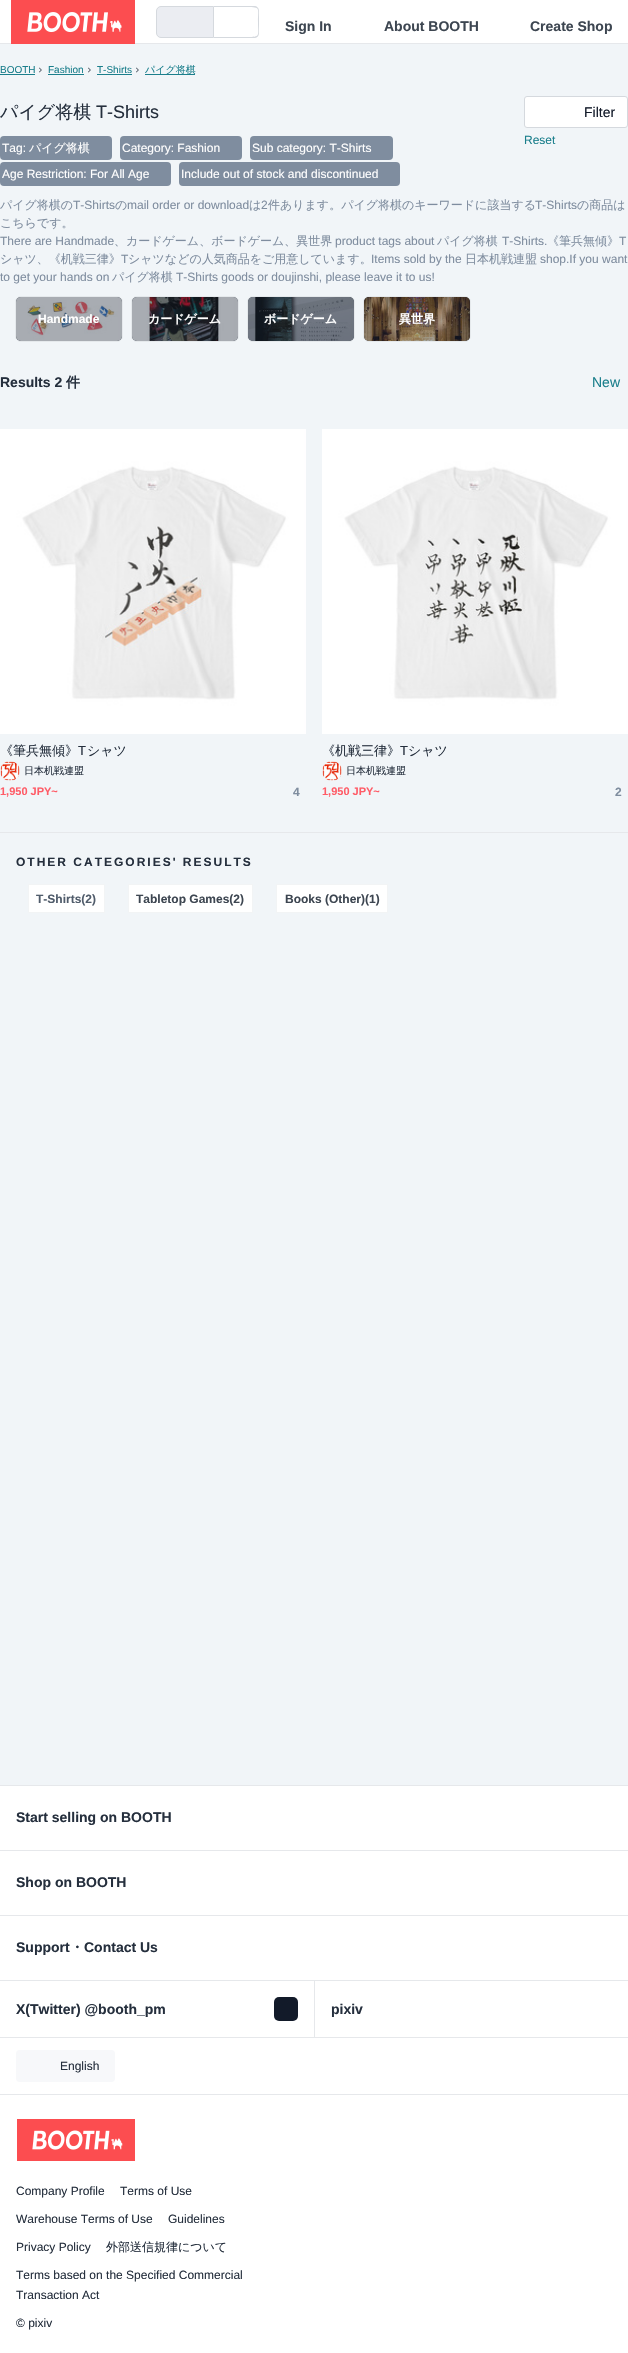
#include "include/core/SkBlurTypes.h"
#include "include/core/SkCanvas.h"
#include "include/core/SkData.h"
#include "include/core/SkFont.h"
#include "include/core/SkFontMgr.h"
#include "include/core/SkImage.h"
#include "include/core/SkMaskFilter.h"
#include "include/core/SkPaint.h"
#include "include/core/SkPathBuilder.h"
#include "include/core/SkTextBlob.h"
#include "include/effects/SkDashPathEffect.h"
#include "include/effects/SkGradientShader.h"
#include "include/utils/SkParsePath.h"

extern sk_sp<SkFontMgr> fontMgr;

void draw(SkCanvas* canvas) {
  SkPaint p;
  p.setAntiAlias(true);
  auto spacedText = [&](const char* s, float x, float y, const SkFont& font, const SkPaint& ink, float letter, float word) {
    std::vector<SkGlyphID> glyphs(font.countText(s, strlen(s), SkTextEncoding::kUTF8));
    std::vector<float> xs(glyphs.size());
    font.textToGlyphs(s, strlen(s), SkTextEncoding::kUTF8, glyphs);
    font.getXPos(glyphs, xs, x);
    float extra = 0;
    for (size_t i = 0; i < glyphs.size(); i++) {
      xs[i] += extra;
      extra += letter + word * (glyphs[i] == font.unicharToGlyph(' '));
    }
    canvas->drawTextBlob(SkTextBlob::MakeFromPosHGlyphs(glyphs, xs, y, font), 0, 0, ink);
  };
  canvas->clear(SK_ColorWHITE);
  p.setColor(SkColorSetRGB(230, 232, 235));
  canvas->drawRect(SkRect::MakeLTRB(0, 43, 628, 44), p);
  canvas->drawImageRect(SkImages::DeferredFromEncodedData(SkData::MakeFromFileName("images/1.png")), SkRect::MakeLTRB(11, 0, 135, 44), SkSamplingOptions());
  p.setColor(SkColorSetRGB(235, 237, 242));
  canvas->drawPath(SkPathBuilder().moveTo(161, 6.5f).lineTo(213.5f, 6.5f).lineTo(213.5f, 37.5f).lineTo(161, 37.5f).cubicTo(158.5f, 37.5f, 156.5f, 35.5f, 156.5f, 33).lineTo(156.5f, 11).cubicTo(156.5f, 8.5f, 158.5f, 6.5f, 161, 6.5f).close().detach(), p);
  p.setStyle(SkPaint::kStroke_Style);
  p.setStrokeWidth(1);
  p.setColor(SkColorSetRGB(213, 217, 222));
  canvas->drawPath(SkPathBuilder().moveTo(161, 6.5f).lineTo(213.5f, 6.5f).lineTo(213.5f, 37.5f).lineTo(161, 37.5f).cubicTo(158.5f, 37.5f, 156.5f, 35.5f, 156.5f, 33).lineTo(156.5f, 11).cubicTo(156.5f, 8.5f, 158.5f, 6.5f, 161, 6.5f).close().detach(), p);
  p.setStyle(SkPaint::kFill_Style);
  canvas->drawPath(SkPathBuilder(SkPathFillType::kEvenOdd).moveTo(214, 6).lineTo(254, 6).cubicTo(257, 6, 259, 8, 259, 11).lineTo(259, 33).cubicTo(259, 36, 257, 38, 254, 38).lineTo(214, 38).close().moveTo(214, 7).lineTo(247, 7).cubicTo(261, 7, 258, 8, 258, 22).cubicTo(258, 36, 261, 37, 247, 37).lineTo(214, 37).close().detach(), p);
  p.setColor(SkColorSetRGB(241, 245, 248));
  canvas->drawRect(SkRect::MakeLTRB(0, 44, 628, 1785), p);
  p.setColor(SkColorSetRGB(27, 127, 140));
  canvas->drawRect(SkRect::MakeLTRB(0, 74, 35, 75), p);
  canvas->drawImageRect(SkImages::DeferredFromEncodedData(SkData::MakeFromFileName("images/2.png")), SkRect::MakeLTRB(39, 67, 42, 73), SkSamplingOptions());
  canvas->drawRect(SkRect::MakeLTRB(48, 74, 84, 75), p);
  canvas->drawImageRect(SkImages::DeferredFromEncodedData(SkData::MakeFromFileName("images/2.png")), SkRect::MakeLTRB(88, 67, 91, 73), SkSamplingOptions());
  canvas->drawRect(SkRect::MakeLTRB(97, 74, 132, 75), p);
  canvas->drawImageRect(SkImages::DeferredFromEncodedData(SkData::MakeFromFileName("images/2.png")), SkRect::MakeLTRB(136, 67, 139, 73), SkSamplingOptions());
  canvas->drawRect(SkRect::MakeLTRB(145, 74, 195, 75), p);
  p.setColor(SK_ColorWHITE);
  canvas->drawRoundRect(SkRect::MakeLTRB(524.5f, 96.5f, 627.5f, 127.5f), 2.5f, 2.5f, p);
  p.setStyle(SkPaint::kStroke_Style);
  p.setColor(SkColorSetRGB(213, 217, 222));
  canvas->drawRoundRect(SkRect::MakeLTRB(524.5f, 96.5f, 627.5f, 127.5f), 2.5f, 2.5f, p);
  p.setStyle(SkPaint::kFill_Style);
  p.setColor(SkColorSetRGB(127, 141, 159));
  canvas->drawRoundRect(SkRect::MakeLTRB(0, 136, 112, 160), 4, 4, p);
  canvas->drawRoundRect(SkRect::MakeLTRB(120, 136, 242, 160), 4, 4, p);
  canvas->drawRoundRect(SkRect::MakeLTRB(250, 136, 393, 160), 4, 4, p);
  canvas->drawRoundRect(SkRect::MakeLTRB(0, 162, 171, 186), 4, 4, p);
  canvas->drawRoundRect(SkRect::MakeLTRB(179, 162, 400, 186), 4, 4, p);
  p.setStyle(SkPaint::kStroke_Style);
  p.setColor(SkColorSetRGB(229, 233, 236));
  canvas->drawRoundRect(SkRect::MakeLTRB(15.5f, 296.5f, 122.5f, 341.5f), 5.5f, 5.5f, p);
  p.setStyle(SkPaint::kFill_Style);
  p.setColor(SkColorSetRGB(37, 47, 61));
  canvas->drawRoundRect(SkRect::MakeLTRB(16, 297, 122, 341), 5, 5, p);
  p.setColor(SkColorSetARGB(153, 37, 47, 61));
  canvas->drawRoundRect(SkRect::MakeLTRB(16, 297, 122, 341), 5, 5, p);
  canvas->drawImageRect(SkImages::DeferredFromEncodedData(SkData::MakeFromFileName("images/3.png")), SkRect::MakeLTRB(16, 297, 122, 341), SkSamplingOptions());
  p.setStyle(SkPaint::kStroke_Style);
  p.setColor(SkColorSetRGB(229, 233, 236));
  canvas->drawRoundRect(SkRect::MakeLTRB(131.5f, 296.5f, 238.5f, 341.5f), 5.5f, 5.5f, p);
  p.setStyle(SkPaint::kFill_Style);
  p.setColor(SkColorSetRGB(37, 47, 61));
  canvas->drawRoundRect(SkRect::MakeLTRB(132, 297, 238, 341), 5, 5, p);
  p.setColor(SkColorSetARGB(153, 37, 47, 61));
  canvas->drawRoundRect(SkRect::MakeLTRB(132, 297, 238, 341), 5, 5, p);
  canvas->drawImageRect(SkImages::DeferredFromEncodedData(SkData::MakeFromFileName("images/4.png")), SkRect::MakeLTRB(132, 297, 238, 341), SkSamplingOptions());
  p.setStyle(SkPaint::kStroke_Style);
  p.setColor(SkColorSetRGB(229, 233, 236));
  canvas->drawRoundRect(SkRect::MakeLTRB(247.5f, 296.5f, 354.5f, 341.5f), 5.5f, 5.5f, p);
  p.setStyle(SkPaint::kFill_Style);
  p.setColor(SkColorSetRGB(37, 47, 61));
  canvas->drawRoundRect(SkRect::MakeLTRB(248, 297, 354, 341), 5, 5, p);
  p.setColor(SkColorSetARGB(153, 37, 47, 61));
  canvas->drawRoundRect(SkRect::MakeLTRB(248, 297, 354, 341), 5, 5, p);
  canvas->drawImageRect(SkImages::DeferredFromEncodedData(SkData::MakeFromFileName("images/5.png")), SkRect::MakeLTRB(248, 297, 354, 341), SkSamplingOptions());
  p.setStyle(SkPaint::kStroke_Style);
  p.setColor(SkColorSetRGB(229, 233, 236));
  canvas->drawRoundRect(SkRect::MakeLTRB(363.5f, 296.5f, 470.5f, 341.5f), 5.5f, 5.5f, p);
  p.setStyle(SkPaint::kFill_Style);
  p.setColor(SkColorSetRGB(37, 47, 61));
  canvas->drawRoundRect(SkRect::MakeLTRB(364, 297, 470, 341), 5, 5, p);
  p.setColor(SkColorSetARGB(153, 37, 47, 61));
  canvas->drawRoundRect(SkRect::MakeLTRB(364, 297, 470, 341), 5, 5, p);
  canvas->drawImageRect(SkImages::DeferredFromEncodedData(SkData::MakeFromFileName("images/6.png")), SkRect::MakeLTRB(364, 297, 470, 341), SkSamplingOptions());
  canvas->drawImageRect(SkImages::DeferredFromEncodedData(SkData::MakeFromFileName("images/7.png")), SkRect::MakeLTRB(0, 429, 306, 734), SkSamplingOptions());
  p.setStyle(SkPaint::kStroke_Style);
  p.setColor(SkColorSetRGB(229, 233, 236));
  canvas->drawCircle(10, 771, 9.5f, p);
  canvas->drawImageRect(SkImages::DeferredFromEncodedData(SkData::MakeFromFileName("images/8.png")), SkRect::MakeLTRB(0, 761, 20, 781), SkSamplingOptions());
  canvas->drawImageRect(SkImages::DeferredFromEncodedData(SkData::MakeFromFileName("images/9.png")), SkRect::MakeLTRB(322, 429, 628, 734), SkSamplingOptions());
  canvas->drawCircle(332, 771, 9.5f, p);
  canvas->drawImageRect(SkImages::DeferredFromEncodedData(SkData::MakeFromFileName("images/10.png")), SkRect::MakeLTRB(322, 761, 342, 781), SkSamplingOptions());
  p.setStyle(SkPaint::kFill_Style);
  p.setColor(SkColorSetRGB(230, 232, 235));
  canvas->drawRect(SkRect::MakeLTRB(0, 832, 628, 833), p);
  p.setStyle(SkPaint::kStroke_Style);
  p.setColor(SkColorSetRGB(242, 244, 245));
  canvas->drawRect(SkRect::MakeLTRB(28.5f, 884.5f, 104.5f, 912.5f), p);
  p.setStyle(SkPaint::kFill_Style);
  p.setColor(SK_ColorWHITE);
  canvas->drawRect(SkRect::MakeLTRB(29, 885, 104, 912), p);
  p.setStyle(SkPaint::kStroke_Style);
  p.setColor(SkColorSetRGB(242, 244, 245));
  canvas->drawRect(SkRect::MakeLTRB(128.5f, 884.5f, 252.5f, 912.5f), p);
  p.setStyle(SkPaint::kFill_Style);
  p.setColor(SK_ColorWHITE);
  canvas->drawRect(SkRect::MakeLTRB(129, 885, 252, 912), p);
  p.setStyle(SkPaint::kStroke_Style);
  p.setColor(SkColorSetRGB(242, 244, 245));
  canvas->drawRect(SkRect::MakeLTRB(276.5f, 884.5f, 387.5f, 912.5f), p);
  p.setStyle(SkPaint::kFill_Style);
  p.setColor(SK_ColorWHITE);
  canvas->drawRect(SkRect::MakeLTRB(277, 885, 387, 912), p);
  p.setColor(SkColorSetRGB(230, 232, 235));
  canvas->drawRect(SkRect::MakeLTRB(0, 1785, 628, 1786), p);
  canvas->drawRect(SkRect::MakeLTRB(0, 2037, 628, 2038), p);
  canvas->drawRect(SkRect::MakeLTRB(0, 1850, 628, 1851), p);
  canvas->drawRect(SkRect::MakeLTRB(0, 1915, 628, 1916), p);
  canvas->drawRect(SkRect::MakeLTRB(0, 1980, 628, 1981), p);
  p.setColor(SkColorSetRGB(18, 26, 41));
  canvas->drawRoundRect(SkRect::MakeLTRB(274, 1997, 298, 2021), 5, 5, p);
  p.setColor(SkColorSetRGB(230, 232, 235));
  canvas->drawRect(SkRect::MakeLTRB(314, 1981, 315, 2037), p);
  p.setColor(SkColorSetRGB(247, 248, 250));
  canvas->drawRoundRect(SkRect::MakeLTRB(16, 2050, 115, 2082), 4, 4, p);
  p.setColor(SkColorSetRGB(230, 232, 235));
  canvas->drawRect(SkRect::MakeLTRB(0, 2094, 628, 2095), p);
  canvas->drawImageRect(SkImages::DeferredFromEncodedData(SkData::MakeFromFileName("images/11.png")), SkRect::MakeLTRB(17, 2119, 135, 2161), SkSamplingOptions());
  SkFont font1(fontMgr->matchFamilyStyle("Liberation Sans", SkFontStyle::Bold()), 14);
  font1.setSubpixel(true);
  p.setColor(SkColorSetRGB(61, 70, 81));
  canvas->drawString("Sign In", 285, 31, font1, p);
  canvas->drawString("About BOOTH", 384, 31, font1, p);
  canvas->drawString("Create Shop", 530, 31, font1, p);
  SkFont font2(fontMgr->matchFamilyStyle("Liberation Sans", SkFontStyle::Normal()), 10);
  font2.setSubpixel(true);
  p.setColor(SkColorSetRGB(27, 127, 140));
  canvas->drawString("BOOTH", 0, 73, font2, p);
  canvas->drawString("Fashion", 48, 73, font2, p);
  canvas->drawString("T-Shirts", 97, 73, font2, p);
  SkFont font3(fontMgr->matchFamilyStyle("WenQuanYi Zen Hei", SkFontStyle(500, SkFontStyle::kNormal_Width, SkFontStyle::kUpright_Slant)), 10);
  font3.setSubpixel(true);
  canvas->drawString("パイグ将棋", 145, 73, font3, p);
  SkFont font4(fontMgr->matchFamilyStyle("WenQuanYi Zen Hei", SkFontStyle(500, SkFontStyle::kNormal_Width, SkFontStyle::kUpright_Slant)), 18);
  font4.setSubpixel(true);
  p.setColor(SkColorSetRGB(37, 47, 61));
  canvas->drawString("パイグ将棋", 0, 118, font4, p);
  SkFont font5(fontMgr->matchFamilyStyle("Liberation Sans", SkFontStyle::Normal()), 18);
  font5.setSubpixel(true);
  canvas->drawString("T-Shirts", 96, 118, font5, p);
  SkFont font6(fontMgr->matchFamilyStyle("Liberation Sans", SkFontStyle::Normal()), 14);
  font6.setSubpixel(true);
  p.setColor(SkColorSetRGB(18, 26, 41));
  canvas->drawString("Filter", 584, 117, font6, p);
  SkFont font7(fontMgr->matchFamilyStyle("Liberation Sans", SkFontStyle::Normal()), 12);
  font7.setSubpixel(true);
  p.setColor(SkColorSetRGB(27, 127, 140));
  canvas->drawString("Reset", 524, 144, font7, p);
  p.setColor(SK_ColorWHITE);
  canvas->drawString("Tag:", 2, 152, font7, p);
  SkFont font8(fontMgr->matchFamilyStyle("WenQuanYi Zen Hei", SkFontStyle(500, SkFontStyle::kNormal_Width, SkFontStyle::kUpright_Slant)), 12);
  font8.setSubpixel(true);
  canvas->drawString("パイグ将棋", 29, 152, font8, p);
  canvas->drawString("Category: Fashion", 122, 152, font7, p);
  canvas->drawString("Sub category: T-Shirts", 252, 152, font7, p);
  canvas->drawString("Age Restriction: For All Age", 2, 178, font7, p);
  canvas->drawString("Include out of stock and discontinued", 181, 178, font7, p);
  p.setColor(SkColorSetRGB(127, 141, 159));
  canvas->drawString("パイグ将棋の", 0, 209, font8, p);
  canvas->drawString("T-Shirts", 73, 209, font7, p);
  canvas->drawString("の", 115, 209, font8, p);
  canvas->drawString("mail order or download", 127, 209, font7, p);
  canvas->drawString("は", 249, 209, font8, p);
  canvas->drawString("2", 261, 209, font7, p);
  canvas->drawString("件あります。パイグ将棋のキーワードに該当する", 268, 209, font8, p);
  canvas->drawString("T-Shirts", 535, 209, font7, p);
  canvas->drawString("の商品は", 577, 209, font8, p);
  canvas->drawString("こちらです。", 0, 227, font8, p);
  canvas->drawString("There are Handmade", 0, 245, font7, p);
  canvas->drawString("、カードゲーム、ボードゲーム、異世界", 114, 245, font8, p);
  canvas->drawString("product tags about", 335, 245, font7, p);
  canvas->drawString("パイグ将棋", 437, 245, font8, p);
  canvas->drawString("T-Shirts.", 502, 245, font7, p);
  canvas->drawString("《筆兵無傾》", 547, 245, font8, p);
  canvas->drawString("T", 619, 245, font7, p);
  canvas->drawString("シャツ、《机戦三律》", 0, 263, font8, p);
  canvas->drawString("T", 121, 263, font7, p);
  canvas->drawString("シャツなどの人気商品をご用意しています。", 128, 263, font8, p);
  canvas->drawString("Items sold by the", 371, 263, font7, p);
  canvas->drawString("日本机戦連盟", 465, 263, font8, p);
  canvas->drawString("shop.If you want", 540, 263, font7, p);
  canvas->drawString("to get your hands on", 0, 281, font7, p);
  canvas->drawString("パイグ将棋", 112, 281, font8, p);
  canvas->drawString("T-Shirts goods or doujinshi, please leave it to us!", 176, 281, font7, p);
  SkFont font9(fontMgr->matchFamilyStyle("Liberation Sans", SkFontStyle::Bold()), 12);
  font9.setSubpixel(true);
  p.setColor(SK_ColorWHITE);
  canvas->drawString("Handmade", 38, 323, font9, p);
  SkFont font10(fontMgr->matchFamilyStyle("WenQuanYi Zen Hei", SkFontStyle::Bold()), 12);
  font10.setSubpixel(true);
  canvas->drawString("カードゲーム", 148, 323, font10, p);
  canvas->drawString("ボードゲーム", 264, 323, font10, p);
  canvas->drawString("異世界", 399, 323, font10, p);
  p.setColor(SkColorSetRGB(37, 47, 61));
  canvas->drawString("Results 2", 0, 387, font1, p);
  SkFont font11(fontMgr->matchFamilyStyle("WenQuanYi Zen Hei", SkFontStyle::Bold()), 14);
  font11.setSubpixel(true);
  canvas->drawString("件", 66, 387, font11, p);
  p.setColor(SkColorSetRGB(27, 127, 140));
  canvas->drawString("New", 592, 387, font6, p);
  SkFont font12(fontMgr->matchFamilyStyle("WenQuanYi Zen Hei", SkFontStyle(500, SkFontStyle::kNormal_Width, SkFontStyle::kUpright_Slant)), 13);
  font12.setSubpixel(true);
  p.setColor(SkColorSetRGB(37, 47, 61));
  canvas->drawString("《筆兵無傾》", 0, 755, font12, p);
  SkFont font13(fontMgr->matchFamilyStyle("Liberation Sans", SkFontStyle::Normal()), 13);
  font13.setSubpixel(true);
  canvas->drawString("T", 78, 755, font13, p);
  canvas->drawString("シャツ", 87, 755, font12, p);
  canvas->drawString("日本机戦連盟", 24, 774, font3, p);
  SkFont font14(fontMgr->matchFamilyStyle("Liberation Sans", SkFontStyle::Bold()), 11);
  font14.setSubpixel(true);
  p.setColor(SkColorSetRGB(255, 92, 103));
  canvas->drawString("1,950 JPY~", 0, 795, font14, p);
  p.setColor(SkColorSetRGB(127, 141, 159));
  canvas->drawString("4", 293, 796, font9, p);
  p.setColor(SkColorSetRGB(37, 47, 61));
  canvas->drawString("《机戦三律》", 322, 755, font12, p);
  canvas->drawString("T", 400, 755, font13, p);
  canvas->drawString("シャツ", 408, 755, font12, p);
  canvas->drawString("日本机戦連盟", 346, 774, font3, p);
  p.setColor(SkColorSetRGB(255, 92, 103));
  canvas->drawString("1,950 JPY~", 322, 795, font14, p);
  p.setColor(SkColorSetRGB(127, 141, 159));
  canvas->drawString("2", 615, 796, font9, p);
  p.setColor(SkColorSetRGB(37, 47, 61));
  spacedText("OTHER CATEGORIES' RESULTS", 16, 866, font9, p, 2, 0);
  p.setColor(SkColorSetRGB(80, 92, 107));
  canvas->drawString("T-Shirts(2)", 36, 903, font9, p);
  p.setColor(SkColorSetRGB(61, 70, 81));
  canvas->drawString("Tabletop Games(2)", 136, 903, font9, p);
  canvas->drawString("Books (Other)(1)", 285, 903, font9, p);
  p.setColor(SkColorSetRGB(37, 47, 61));
  canvas->drawString("Start selling on BOOTH", 16, 1822, font1, p);
  canvas->drawString("Shop on BOOTH", 16, 1887, font1, p);
  canvas->drawString("Support", 16, 1952, font1, p);
  canvas->drawString("・", 70, 1952, font11, p);
  canvas->drawString("Contact Us", 84, 1952, font1, p);
  canvas->drawString("X(Twitter) @booth_pm", 16, 2014, font1, p);
  canvas->drawString("pixiv", 331, 2014, font1, p);
  canvas->drawString("English", 60, 2070, font7, p);
  canvas->drawString("Company Profile", 16, 2195, font7, p);
  canvas->drawString("Terms of Use", 120, 2195, font7, p);
  canvas->drawString("Warehouse Terms of Use", 16, 2223, font7, p);
  canvas->drawString("Guidelines", 168, 2223, font7, p);
  canvas->drawString("Privacy Policy", 16, 2251, font7, p);
  canvas->drawString("外部送信規律について", 106, 2251, font8, p);
  canvas->drawString("Terms based on the Specified Commercial", 16, 2279, font7, p);
  canvas->drawString("Transaction Act", 16, 2299, font7, p);
  canvas->drawString("© pixiv", 16, 2327, font7, p);
}
